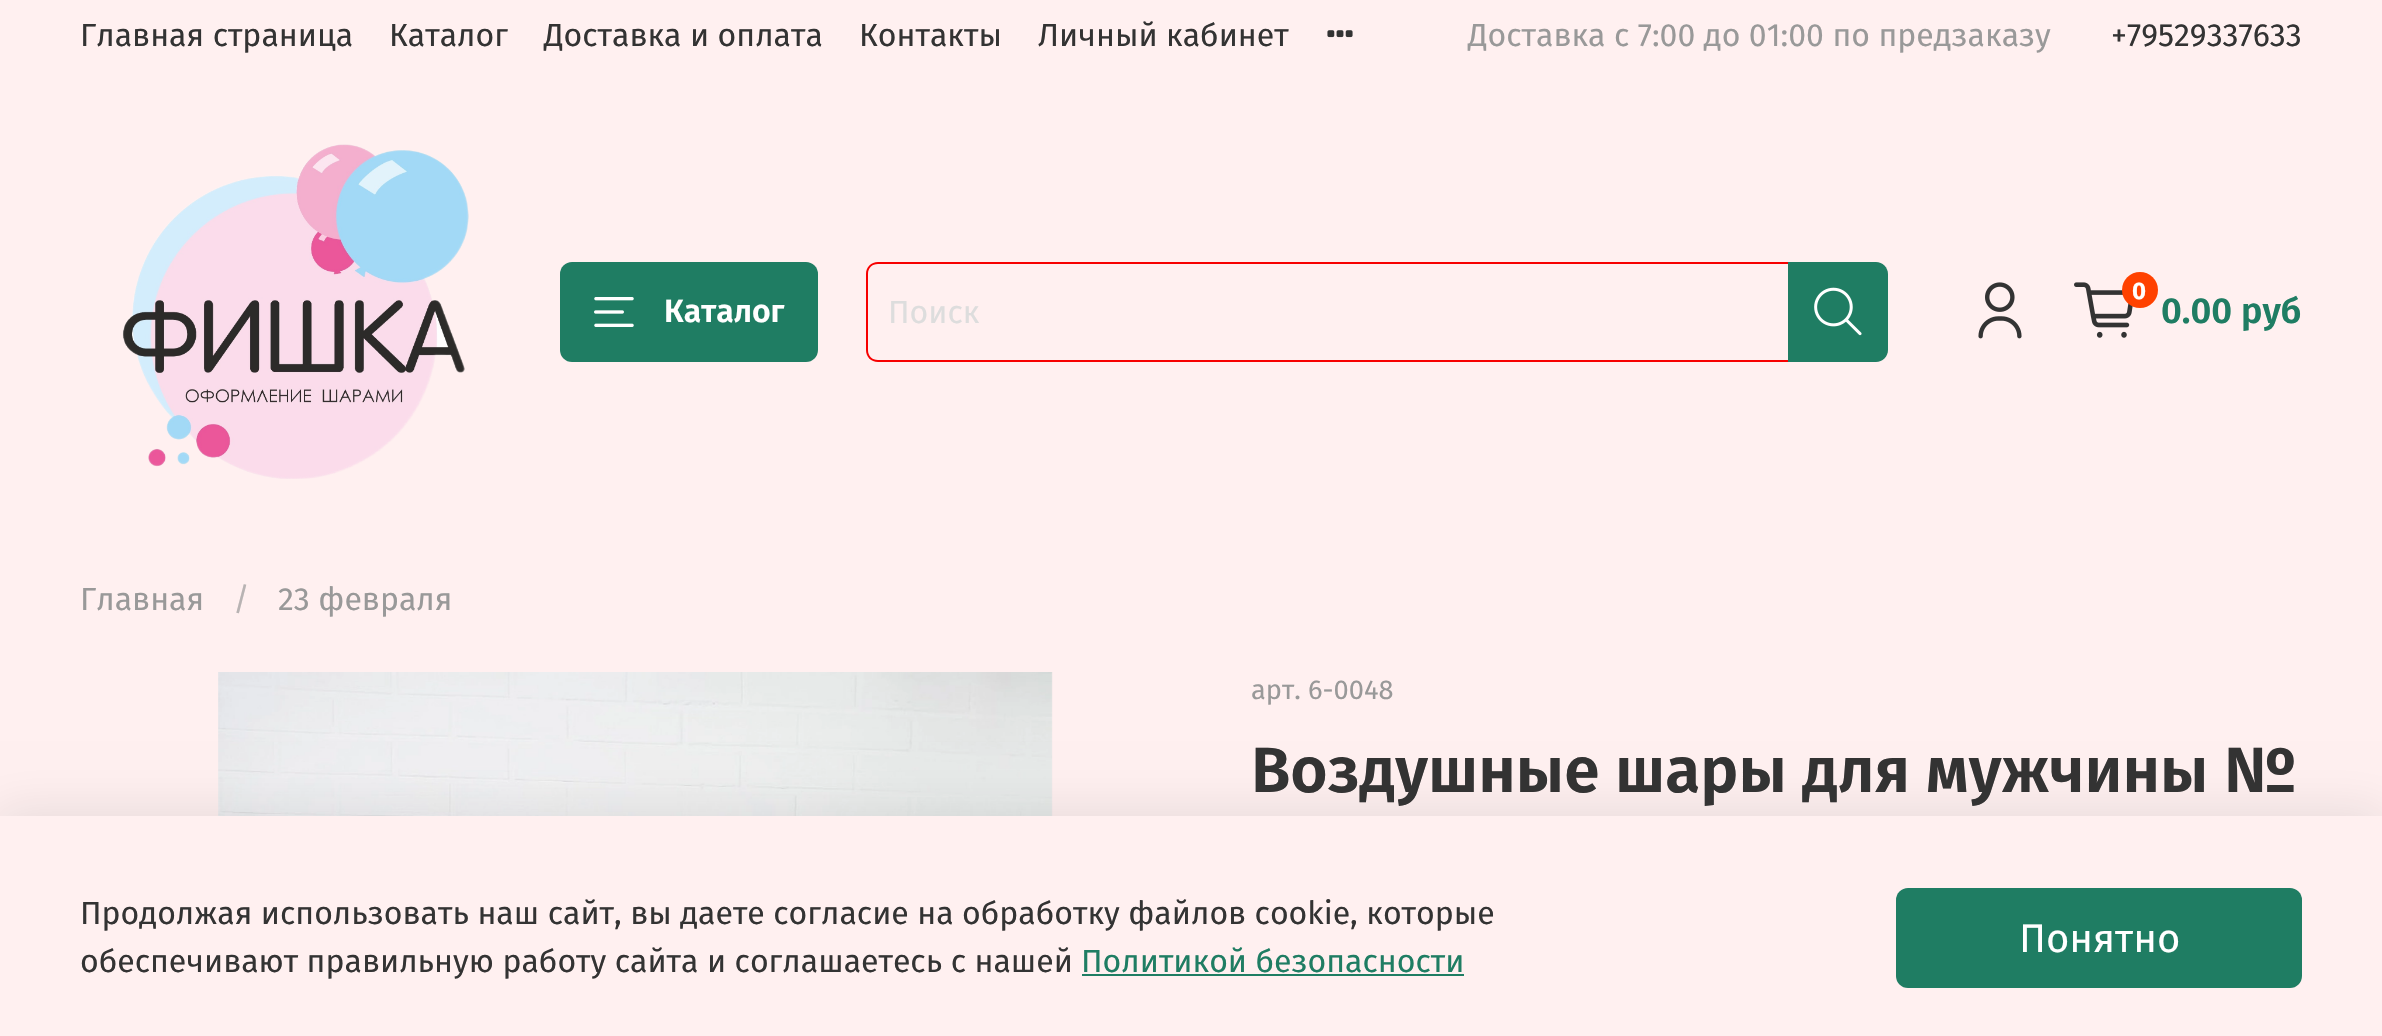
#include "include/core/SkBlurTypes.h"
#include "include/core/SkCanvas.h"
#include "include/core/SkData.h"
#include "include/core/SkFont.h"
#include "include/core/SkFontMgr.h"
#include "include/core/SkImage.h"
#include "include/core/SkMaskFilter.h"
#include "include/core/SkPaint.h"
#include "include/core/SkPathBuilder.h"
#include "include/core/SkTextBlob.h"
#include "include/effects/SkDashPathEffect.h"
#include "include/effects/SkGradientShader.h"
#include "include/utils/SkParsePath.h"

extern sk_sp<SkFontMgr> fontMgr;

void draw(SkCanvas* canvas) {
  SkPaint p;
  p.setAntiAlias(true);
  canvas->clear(SkColorSetRGB(255, 240, 240));
  canvas->drawImageRect(SkImages::DeferredFromEncodedData(SkData::MakeFromFileName("images/1.png")), SkRect::MakeLTRB(1327, 30, 1353, 38), SkSamplingOptions());
  canvas->drawImageRect(SkImages::DeferredFromEncodedData(SkData::MakeFromFileName("images/2.png")), SkRect::MakeLTRB(122, 144, 469, 479), SkSamplingOptions());
  p.setColor(SkColorSetRGB(31, 125, 99));
  canvas->drawRoundRect(SkRect::MakeLTRB(560, 262, 818, 362), 12, 12, p);
  canvas->drawImageRect(SkImages::DeferredFromEncodedData(SkData::MakeFromFileName("images/3.png")), SkRect::MakeLTRB(594, 297, 634, 327), SkSamplingOptions());
  p.setColor(SkColorSetRGB(247, 0, 0));
  canvas->drawPath(SkPathBuilder(SkPathFillType::kEvenOdd).moveTo(878, 262).lineTo(1788, 262).lineTo(1788, 362).lineTo(878, 362).cubicTo(871, 362, 866, 357, 866, 350).lineTo(866, 274).cubicTo(866, 267, 871, 262, 878, 262).close().moveTo(878, 264).lineTo(1788, 264).lineTo(1788, 360).lineTo(878, 360).cubicTo(872, 360, 868, 356, 868, 350).lineTo(868, 274).cubicTo(868, 268, 872, 264, 878, 264).close().detach(), p);
  p.setColor(SkColorSetRGB(31, 125, 99));
  canvas->drawPath(SkPathBuilder().moveTo(1788, 262).lineTo(1876, 262).cubicTo(1882.5f, 262, 1888, 267.5f, 1888, 274).lineTo(1888, 350).cubicTo(1888, 356.5f, 1882.5f, 362, 1876, 362).lineTo(1788, 362).close().detach(), p);
  canvas->drawImageRect(SkImages::DeferredFromEncodedData(SkData::MakeFromFileName("images/4.png")), SkRect::MakeLTRB(1814, 287, 1862, 336), SkSamplingOptions());
  canvas->drawImageRect(SkImages::DeferredFromEncodedData(SkData::MakeFromFileName("images/5.png")), SkRect::MakeLTRB(1978, 282, 2022, 339), SkSamplingOptions());
  canvas->drawImageRect(SkImages::DeferredFromEncodedData(SkData::MakeFromFileName("images/6.png")), SkRect::MakeLTRB(2074, 282, 2133, 338), SkSamplingOptions());
  p.setColor(SkColorSetRGB(255, 65, 0));
  canvas->drawCircle(2140, 290, 18, p);
  canvas->drawImageRect(SkImages::DeferredFromEncodedData(SkData::MakeFromFileName("images/7.png")), SkRect::MakeLTRB(218, 672, 1053, 816), SkSamplingOptions());
  p.setColor(SkColorSetARGB(23, 0, 0, 0));
  p.setMaskFilter(SkMaskFilter::MakeBlur(kNormal_SkBlurStyle, 23));
  canvas->drawRect(SkRect::MakeLTRB(-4, 810, 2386, 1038), p);
  p.setMaskFilter(nullptr);
  p.setColor(SkColorSetRGB(255, 240, 240));
  canvas->drawRect(SkRect::MakeLTRB(0, 816, 2382, 1036), p);
  p.setColor(SkColorSetRGB(31, 125, 99));
  canvas->drawRect(SkRect::MakeLTRB(1082, 974, 1464, 976), p);
  canvas->drawRoundRect(SkRect::MakeLTRB(1896, 888, 2302, 988), 12, 12, p);
  SkFont font1(fontMgr->matchFamilyStyle("Fira Sans", SkFontStyle::Normal()), 32);
  font1.setSubpixel(true);
  p.setColor(SkColorSetRGB(51, 51, 51));
  canvas->drawString("Главная страница", 80, 46, font1, p);
  canvas->drawString("Каталог", 389, 46, font1, p);
  canvas->drawString("Доставка и оплата", 544, 46, font1, p);
  canvas->drawString("Контакты", 859, 46, font1, p);
  canvas->drawString("Личный кабинет", 1038, 46, font1, p);
  p.setColor(SkColorSetRGB(153, 153, 153));
  canvas->drawString("Доставка с 7:00 до 01:00 по предзаказу", 1468, 46, font1, p);
  p.setColor(SkColorSetRGB(51, 51, 51));
  canvas->drawString("+79529337633", 2111, 46, font1, p);
  SkFont font2(fontMgr->matchFamilyStyle("Fira Sans", SkFontStyle(600, SkFontStyle::kNormal_Width, SkFontStyle::kUpright_Slant)), 32);
  font2.setSubpixel(true);
  p.setColor(SK_ColorWHITE);
  canvas->drawString("Каталог", 664, 322, font2, p);
  p.setColor(SkColorSetRGB(221, 221, 221));
  canvas->drawString("Поиск", 888, 323, font1, p);
  SkFont font3(fontMgr->matchFamilyStyle("Fira Sans", SkFontStyle::Bold()), 24);
  font3.setSubpixel(true);
  p.setColor(SK_ColorWHITE);
  canvas->drawString("0", 2132, 299, font3, p);
  SkFont font4(fontMgr->matchFamilyStyle("Fira Sans", SkFontStyle(600, SkFontStyle::kNormal_Width, SkFontStyle::kUpright_Slant)), 36);
  font4.setSubpixel(true);
  p.setColor(SkColorSetRGB(31, 125, 99));
  canvas->drawString("0.00 руб", 2161, 323, font4, p);
  p.setColor(SkColorSetRGB(153, 153, 153));
  canvas->drawString("Главная", 80, 610, font1, p);
  p.setColor(SkColorSetRGB(184, 179, 179));
  canvas->drawString("/", 233, 610, font1, p);
  p.setColor(SkColorSetRGB(153, 153, 153));
  canvas->drawString("23 февраля", 278, 610, font1, p);
  SkFont font5(fontMgr->matchFamilyStyle("Fira Sans", SkFontStyle::Normal()), 27.25f);
  font5.setSubpixel(true);
  canvas->drawString("арт. 6-0048", 1251, 699, font5, p);
  SkFont font6(fontMgr->matchFamilyStyle("Fira Sans", SkFontStyle(600, SkFontStyle::kNormal_Width, SkFontStyle::kUpright_Slant)), 64);
  font6.setSubpixel(true);
  p.setColor(SkColorSetRGB(51, 51, 51));
  canvas->drawString("Воздушные шары для мужчины №", 1251, 792, font6, p);
  canvas->drawString("Продолжая использовать наш сайт, вы даете согласие на обработку файлов cookie, которые", 80, 924, font1, p);
  canvas->drawString("обеспечивают правильную работу сайта и соглашаетесь с нашей", 80, 972, font1, p);
  p.setColor(SkColorSetRGB(31, 125, 99));
  canvas->drawString("Политикой безопасности", 1081, 972, font1, p);
  SkFont font7(fontMgr->matchFamilyStyle("Fira Sans", SkFontStyle::Normal()), 40);
  font7.setSubpixel(true);
  p.setColor(SK_ColorWHITE);
  canvas->drawString("Понятно", 2019, 952, font7, p);
}
